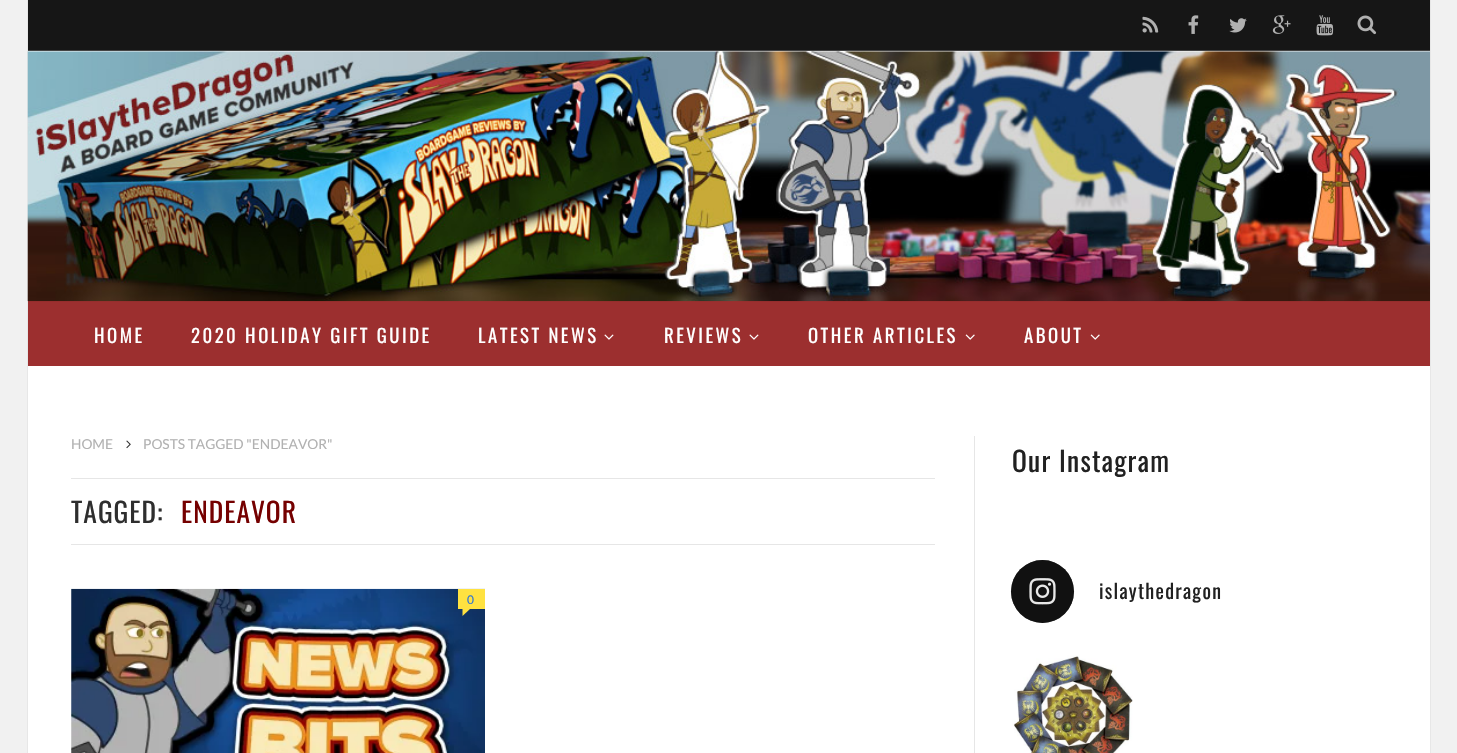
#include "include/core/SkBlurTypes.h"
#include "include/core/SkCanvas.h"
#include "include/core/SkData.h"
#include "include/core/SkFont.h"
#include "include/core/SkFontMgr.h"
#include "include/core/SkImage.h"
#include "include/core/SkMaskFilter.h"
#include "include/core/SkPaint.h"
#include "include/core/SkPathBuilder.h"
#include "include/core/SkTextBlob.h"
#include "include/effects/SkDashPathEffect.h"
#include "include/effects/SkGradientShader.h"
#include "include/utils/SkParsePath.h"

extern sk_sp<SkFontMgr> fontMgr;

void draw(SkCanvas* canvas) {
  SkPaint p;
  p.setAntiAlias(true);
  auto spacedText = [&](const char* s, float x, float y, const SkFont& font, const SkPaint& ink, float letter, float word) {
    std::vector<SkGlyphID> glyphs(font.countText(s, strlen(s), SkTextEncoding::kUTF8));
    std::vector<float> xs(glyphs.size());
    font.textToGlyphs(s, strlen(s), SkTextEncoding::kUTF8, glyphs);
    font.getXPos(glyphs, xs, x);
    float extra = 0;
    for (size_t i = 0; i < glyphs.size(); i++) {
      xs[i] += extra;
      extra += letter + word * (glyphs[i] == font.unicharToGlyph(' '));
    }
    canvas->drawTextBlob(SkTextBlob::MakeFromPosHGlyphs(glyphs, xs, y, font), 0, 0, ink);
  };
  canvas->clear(SkColorSetRGB(241, 241, 241));
  p.setColor(SkColorSetARGB(64, 0, 0, 0));
  p.setMaskFilter(SkMaskFilter::MakeBlur(kNormal_SkBlurStyle, 0.5f));
  canvas->drawRect(SkRect::MakeLTRB(28, 0, 1430, 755), p);
  p.setMaskFilter(nullptr);
  p.setColor(SK_ColorWHITE);
  canvas->drawRect(SkRect::MakeLTRB(28, 51, 1430, 753), p);
  p.setColor(SkColorSetRGB(22, 22, 22));
  canvas->drawRect(SkRect::MakeLTRB(28, 0, 1430, 50), p);
  p.setColor(SkColorSetRGB(68, 68, 68));
  canvas->drawRect(SkRect::MakeLTRB(28, 50, 1430, 51), p);
  canvas->drawImageRect(SkImages::DeferredFromEncodedData(SkData::MakeFromFileName("images/1.png")), SkRect::MakeLTRB(1142, 16, 1159, 33), SkSamplingOptions());
  canvas->drawImageRect(SkImages::DeferredFromEncodedData(SkData::MakeFromFileName("images/2.png")), SkRect::MakeLTRB(1188, 15, 1199, 34), SkSamplingOptions());
  canvas->drawImageRect(SkImages::DeferredFromEncodedData(SkData::MakeFromFileName("images/3.png")), SkRect::MakeLTRB(1229, 18, 1247, 33), SkSamplingOptions());
  canvas->drawImageRect(SkImages::DeferredFromEncodedData(SkData::MakeFromFileName("images/4.png")), SkRect::MakeLTRB(1272, 15, 1291, 34), SkSamplingOptions());
  canvas->drawImageRect(SkImages::DeferredFromEncodedData(SkData::MakeFromFileName("images/5.png")), SkRect::MakeLTRB(1316, 15, 1334, 36), SkSamplingOptions());
  canvas->drawImageRect(SkImages::DeferredFromEncodedData(SkData::MakeFromFileName("images/6.png")), SkRect::MakeLTRB(1357, 15, 1377, 35), SkSamplingOptions());
  p.setColor(SkColorSetRGB(156, 47, 47));
  canvas->drawRect(SkRect::MakeLTRB(28, 301, 1430, 366), p);
  canvas->drawImageRect(SkImages::DeferredFromEncodedData(SkData::MakeFromFileName("images/7.png")), SkRect::MakeLTRB(27, 51, 1430, 302), SkSamplingOptions());
  canvas->drawImageRect(SkImages::DeferredFromEncodedData(SkData::MakeFromFileName("images/8.png")), SkRect::MakeLTRB(604, 334, 614, 340), SkSamplingOptions());
  canvas->drawImageRect(SkImages::DeferredFromEncodedData(SkData::MakeFromFileName("images/8.png")), SkRect::MakeLTRB(749, 334, 759, 340), SkSamplingOptions());
  canvas->drawImageRect(SkImages::DeferredFromEncodedData(SkData::MakeFromFileName("images/9.png")), SkRect::MakeLTRB(965, 334, 975, 340), SkSamplingOptions());
  canvas->drawImageRect(SkImages::DeferredFromEncodedData(SkData::MakeFromFileName("images/9.png")), SkRect::MakeLTRB(1090, 334, 1100, 340), SkSamplingOptions());
  canvas->drawImageRect(SkImages::DeferredFromEncodedData(SkData::MakeFromFileName("images/10.png")), SkRect::MakeLTRB(126, 440, 131, 449), SkSamplingOptions());
  p.setColor(SkColorSetRGB(230, 230, 230));
  canvas->drawRect(SkRect::MakeLTRB(71, 478, 935, 479), p);
  canvas->drawRect(SkRect::MakeLTRB(71, 544, 935, 545), p);
  canvas->drawImageRect(SkImages::DeferredFromEncodedData(SkData::MakeFromFileName("images/11.png")), SkRect::MakeLTRB(71, 588, 485, 753), SkSamplingOptions());
  p.setColor(SkColorSetRGB(255, 226, 64));
  canvas->drawRect(SkRect::MakeLTRB(458, 589, 485, 609), p);
  canvas->drawPath(SkPathBuilder().moveTo(462.5f, 616).lineTo(462.5f, 609).lineTo(470, 609).close().detach(), p);
  p.setColor(SkColorSetRGB(230, 230, 230));
  canvas->drawRect(SkRect::MakeLTRB(974, 436, 975, 753), p);
  p.setColor(SkColorSetRGB(51, 51, 51));
  canvas->drawCircle(1042.5f, 591.5f, 31.5f, p);
  p.setColor(SkColorSetARGB(173, 0, 0, 0));
  canvas->drawCircle(1042.5f, 591.5f, 31.5f, p);
  canvas->drawImageRect(SkImages::DeferredFromEncodedData(SkData::MakeFromFileName("images/12.png")), SkRect::MakeLTRB(1029, 578, 1056, 605), SkSamplingOptions());
  canvas->drawImageRect(SkImages::DeferredFromEncodedData(SkData::MakeFromFileName("images/13.png")), SkRect::MakeLTRB(1012, 655, 1133, 753), SkSamplingOptions());
  SkFont font1(fontMgr->matchFamilyStyle("Oswald", SkFontStyle::Normal()), 18.75f);
  font1.setSubpixel(true);
  p.setColor(SK_ColorWHITE);
  spacedText("HOME", 94, 343, font1, p, 2.5f, 0);
  spacedText("2020 HOLIDAY GIFT GUIDE", 191, 343, font1, p, 2.5f, 0);
  spacedText("LATEST NEWS", 478, 343, font1, p, 2.5f, 0);
  spacedText("REVIEWS", 664, 343, font1, p, 2.5f, 0);
  spacedText("OTHER ARTICLES", 808, 343, font1, p, 2.5f, 0);
  spacedText("ABOUT", 1024, 343, font1, p, 2.5f, 0);
  SkFont font2(fontMgr->matchFamilyStyle("Lato", SkFontStyle::Normal()), 13.75f);
  font2.setSubpixel(true);
  p.setColor(SkColorSetRGB(177, 177, 177));
  canvas->drawString("HOME", 71, 449, font2, p);
  canvas->drawString("POSTS TAGGED \"ENDEAVOR\"", 143, 449, font2, p);
  SkFont font3(fontMgr->matchFamilyStyle("Oswald", SkFontStyle::Normal()), 27.5f);
  font3.setSubpixel(true);
  p.setColor(SkColorSetRGB(46, 46, 46));
  spacedText("TAGGED:", 71, 523, font3, p, 1, 0);
  p.setColor(SkColorSetRGB(117, 0, 0));
  spacedText("ENDEAVOR", 181, 523, font3, p, 1, 0);
  SkFont font4(fontMgr->matchFamilyStyle("Lato", SkFontStyle::Normal()), 12);
  font4.setSubpixel(true);
  p.setColor(SkColorSetRGB(50, 119, 209));
  canvas->drawString("0", 467, 604, font4, p);
  p.setColor(SkColorSetRGB(33, 33, 33));
  spacedText("Our Instagram", 1012, 472, font3, p, 1.25f, 0);
  SkFont font5(fontMgr->matchFamilyStyle("Oswald", SkFontStyle::Normal()), 20);
  font5.setSubpixel(true);
  spacedText("islaythedragon", 1099, 599, font5, p, 1.25f, 0);
}
